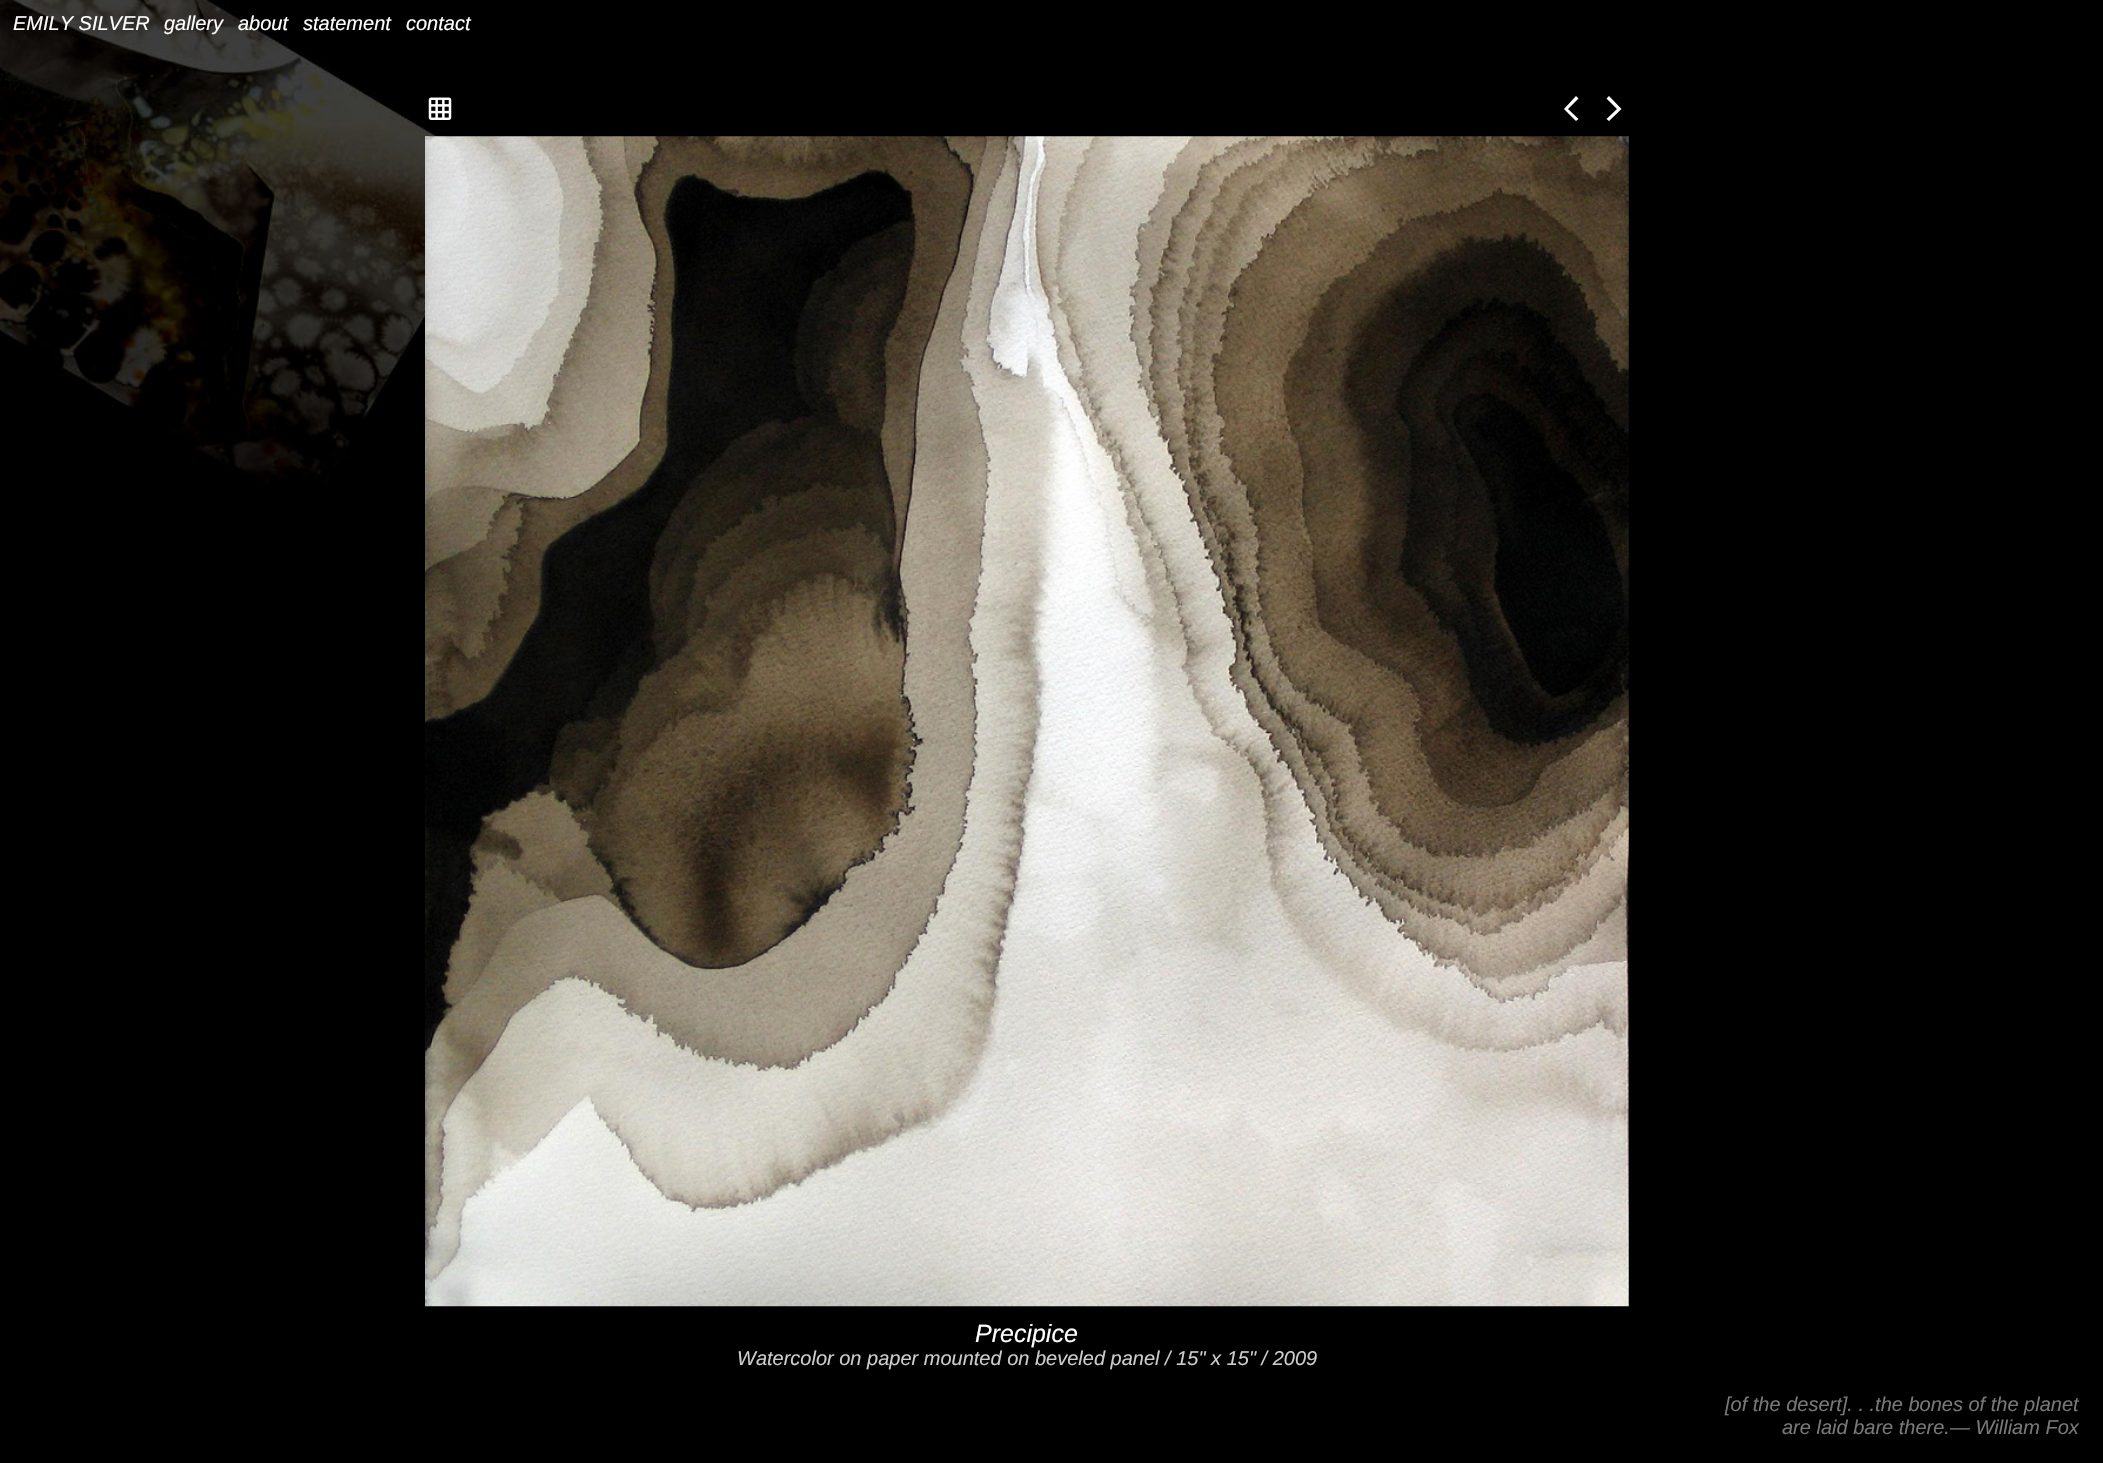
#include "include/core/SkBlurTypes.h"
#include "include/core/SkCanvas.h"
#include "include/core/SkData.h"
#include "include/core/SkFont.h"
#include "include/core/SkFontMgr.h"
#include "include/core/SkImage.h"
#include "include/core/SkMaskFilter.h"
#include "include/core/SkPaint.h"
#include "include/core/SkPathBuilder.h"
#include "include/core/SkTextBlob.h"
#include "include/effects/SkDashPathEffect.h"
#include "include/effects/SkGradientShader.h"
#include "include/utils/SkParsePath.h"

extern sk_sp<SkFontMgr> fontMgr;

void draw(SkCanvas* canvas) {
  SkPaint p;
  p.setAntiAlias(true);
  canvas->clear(SK_ColorBLACK);
  canvas->drawImageRect(SkImages::DeferredFromEncodedData(SkData::MakeFromFileName("images/1.png")), SkRect::MakeLTRB(0, 0, 510, 484), SkSamplingOptions());
  canvas->drawImageRect(SkImages::DeferredFromEncodedData(SkData::MakeFromFileName("images/2.png")), SkRect::MakeLTRB(428, 97, 452, 120), SkSamplingOptions());
  p.setColor(SK_ColorWHITE);
  canvas->drawPath(SkPathBuilder().moveTo(1576, 121).lineTo(1564, 109).lineTo(1576, 96).lineTo(1578.5f, 98.5f).lineTo(1568, 109).lineTo(1578.5f, 119).close().moveTo(1609, 121).lineTo(1606.5f, 119).lineTo(1617, 109).lineTo(1606.5f, 98.5f).lineTo(1609, 96).lineTo(1621.5f, 109).close().detach(), p);
  canvas->drawImageRect(SkImages::DeferredFromEncodedData(SkData::MakeFromFileName("images/3.png")), SkRect::MakeLTRB(425, 136, 1629, 1307), SkSamplingOptions());
  SkFont font1(fontMgr->matchFamilyStyle("Liberation Sans", SkFontStyle::Italic()), 20);
  font1.setSubpixel(true);
  canvas->drawString("EMILY SILVER", 13, 30, font1, p);
  canvas->drawString("gallery", 164, 30, font1, p);
  canvas->drawString("about", 238, 30, font1, p);
  canvas->drawString("statement", 303, 30, font1, p);
  canvas->drawString("contact", 406, 30, font1, p);
  SkFont font2(fontMgr->matchFamilyStyle("Liberation Sans", SkFontStyle::Italic()), 25);
  font2.setSubpixel(true);
  canvas->drawString("Precipice", 975, 1342, font2, p);
  p.setColor(SkColorSetRGB(204, 204, 204));
  canvas->drawString("Watercolor on paper mounted on beveled panel / 15\" x 15\" / 2009", 737, 1365, font1, p);
  p.setColor(SkColorSetRGB(120, 120, 120));
  canvas->drawString("[of the desert]. . .the bones of the planet", 1725, 1411, font1, p);
  canvas->drawString("are laid bare there.— William Fox", 1782, 1434, font1, p);
}
